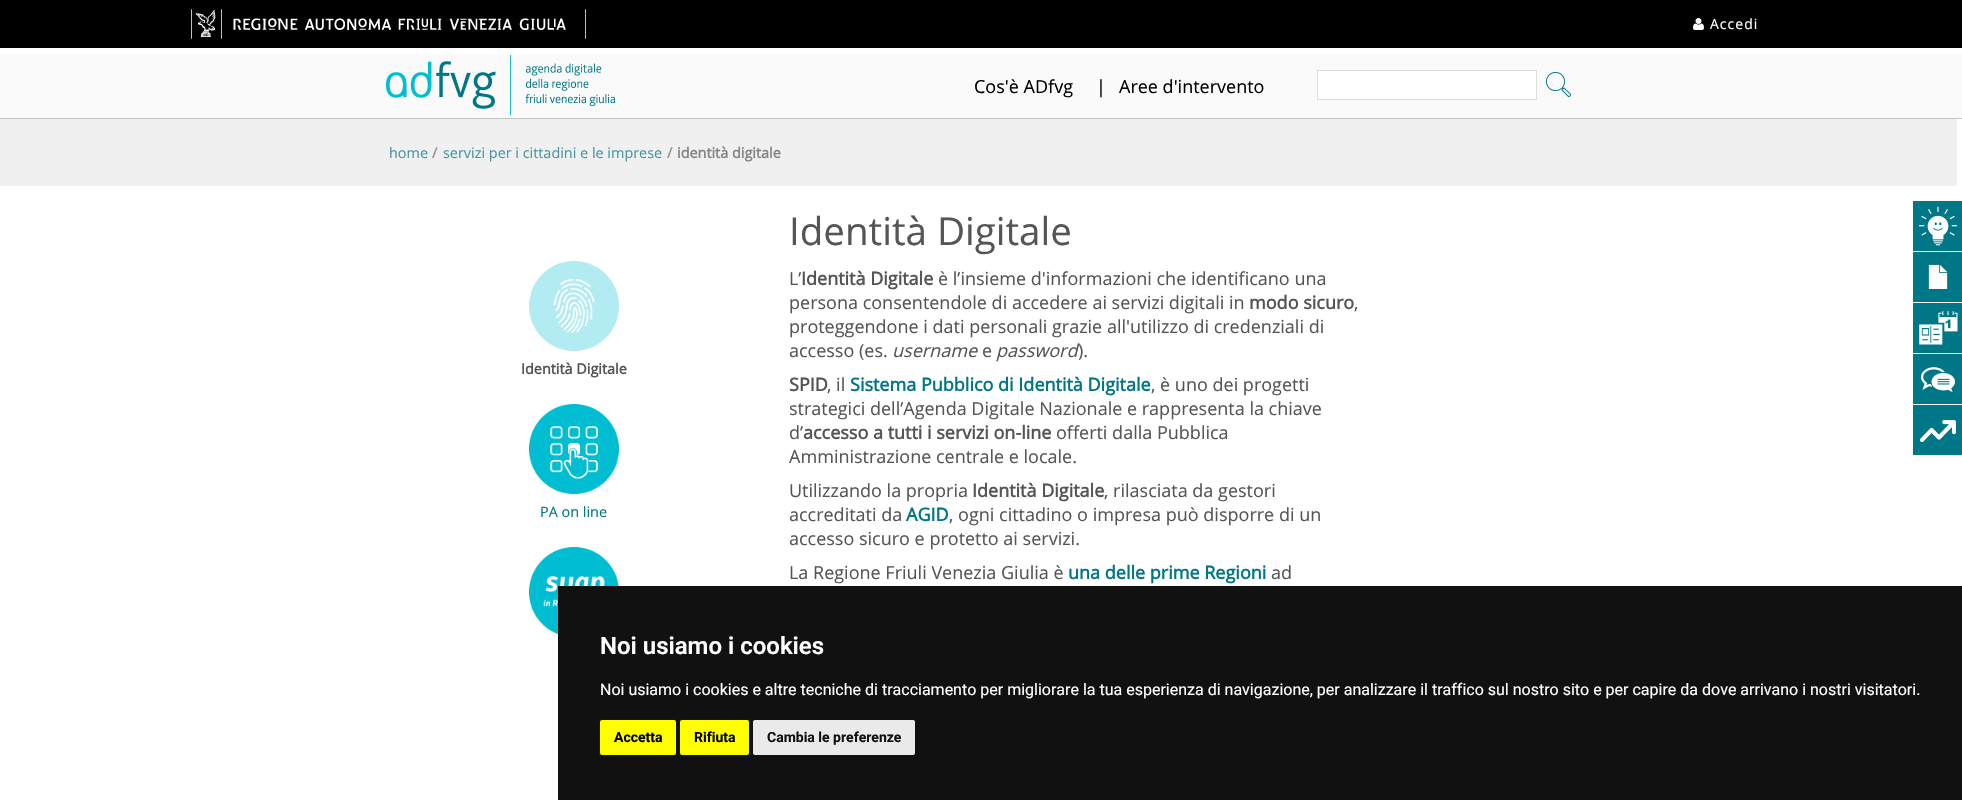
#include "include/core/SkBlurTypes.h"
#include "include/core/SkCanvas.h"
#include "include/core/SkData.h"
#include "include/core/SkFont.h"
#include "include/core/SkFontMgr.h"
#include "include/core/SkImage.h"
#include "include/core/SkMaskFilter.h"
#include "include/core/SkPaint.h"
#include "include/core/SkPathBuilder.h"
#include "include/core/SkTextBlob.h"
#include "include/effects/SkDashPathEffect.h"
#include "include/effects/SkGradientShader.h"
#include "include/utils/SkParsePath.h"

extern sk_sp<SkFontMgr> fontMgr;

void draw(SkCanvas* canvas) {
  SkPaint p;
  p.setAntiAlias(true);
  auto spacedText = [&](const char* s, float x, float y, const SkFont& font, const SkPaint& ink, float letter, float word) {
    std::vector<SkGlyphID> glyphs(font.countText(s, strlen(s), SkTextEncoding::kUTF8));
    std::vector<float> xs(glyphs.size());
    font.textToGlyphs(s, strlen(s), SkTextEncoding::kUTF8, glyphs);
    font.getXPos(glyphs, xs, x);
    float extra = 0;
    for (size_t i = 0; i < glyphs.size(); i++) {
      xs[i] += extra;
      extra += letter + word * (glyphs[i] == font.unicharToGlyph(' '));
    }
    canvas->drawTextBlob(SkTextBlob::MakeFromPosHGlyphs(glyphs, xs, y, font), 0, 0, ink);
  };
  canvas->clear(SK_ColorWHITE);
  p.setColor(SK_ColorBLACK);
  canvas->drawRect(SkRect::MakeLTRB(0, 0, 1962, 48), p);
  canvas->drawImageRect(SkImages::DeferredFromEncodedData(SkData::MakeFromFileName("images/1.png")), SkRect::MakeLTRB(191, 9, 586, 39), SkSamplingOptions());
  canvas->drawImageRect(SkImages::DeferredFromEncodedData(SkData::MakeFromFileName("images/2.png")), SkRect::MakeLTRB(1693, 18, 1704, 30), SkSamplingOptions());
  p.setColor(SkColorSetRGB(250, 250, 250));
  canvas->drawRect(SkRect::MakeLTRB(0, 55, 1962, 118), p);
  p.setColor(SkColorSetRGB(240, 240, 240));
  canvas->drawPath(SkPathBuilder().moveTo(0, 118).lineTo(1955, 118).cubicTo(1956, 118, 1957, 119, 1957, 120).lineTo(1957, 184).cubicTo(1957, 185, 1956, 186, 1955, 186).lineTo(0, 186).close().detach(), p);
  p.setColor(SkColorSetRGB(196, 196, 196));
  canvas->drawRect(SkRect::MakeLTRB(0, 118, 1962, 119), p);
  canvas->drawImageRect(SkImages::DeferredFromEncodedData(SkData::MakeFromFileName("images/3.png")), SkRect::MakeLTRB(386, 55, 615, 115), SkSamplingOptions());
  p.setColor(SK_ColorWHITE);
  canvas->drawRect(SkRect::MakeLTRB(1317.5f, 70.5f, 1536.5f, 99.5f), p);
  p.setStyle(SkPaint::kStroke_Style);
  p.setStrokeWidth(1);
  p.setColor(SkColorSetRGB(221, 221, 221));
  canvas->drawRect(SkRect::MakeLTRB(1317.5f, 70.5f, 1536.5f, 99.5f), p);
  canvas->drawImageRect(SkImages::DeferredFromEncodedData(SkData::MakeFromFileName("images/4.png")), SkRect::MakeLTRB(1546, 72, 1571, 97), SkSamplingOptions());
  canvas->drawImageRect(SkImages::DeferredFromEncodedData(SkData::MakeFromFileName("images/5.png")), SkRect::MakeLTRB(529, 261, 619, 351), SkSamplingOptions());
  canvas->drawImageRect(SkImages::DeferredFromEncodedData(SkData::MakeFromFileName("images/6.png")), SkRect::MakeLTRB(529, 404, 619, 494), SkSamplingOptions());
  canvas->drawImageRect(SkImages::DeferredFromEncodedData(SkData::MakeFromFileName("images/7.png")), SkRect::MakeLTRB(529, 547, 619, 635), SkSamplingOptions());
  canvas->drawImageRect(SkImages::DeferredFromEncodedData(SkData::MakeFromFileName("images/8.png")), SkRect::MakeLTRB(1913, 201, 1962, 251), SkSamplingOptions());
  canvas->drawImageRect(SkImages::DeferredFromEncodedData(SkData::MakeFromFileName("images/9.png")), SkRect::MakeLTRB(1913, 252, 1962, 302), SkSamplingOptions());
  canvas->drawImageRect(SkImages::DeferredFromEncodedData(SkData::MakeFromFileName("images/10.png")), SkRect::MakeLTRB(1913, 303, 1962, 353), SkSamplingOptions());
  canvas->drawImageRect(SkImages::DeferredFromEncodedData(SkData::MakeFromFileName("images/11.png")), SkRect::MakeLTRB(1913, 354, 1962, 404), SkSamplingOptions());
  canvas->drawImageRect(SkImages::DeferredFromEncodedData(SkData::MakeFromFileName("images/12.png")), SkRect::MakeLTRB(1913, 405, 1962, 455), SkSamplingOptions());
  p.setStyle(SkPaint::kFill_Style);
  p.setColor(SkColorSetRGB(17, 17, 17));
  canvas->drawRect(SkRect::MakeLTRB(558, 586, 1962, 800), p);
  p.setColor(SkColorSetRGB(255, 255, 0));
  canvas->drawRoundRect(SkRect::MakeLTRB(600, 720, 676, 755), 2, 2, p);
  canvas->drawRoundRect(SkRect::MakeLTRB(680, 720, 749, 755), 2, 2, p);
  p.setColor(SkColorSetRGB(234, 234, 234));
  canvas->drawRoundRect(SkRect::MakeLTRB(753, 720, 915, 755), 2, 2, p);
  SkFont font1(fontMgr->matchFamilyStyle("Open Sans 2", SkFontStyle::Normal()), 14);
  font1.setSubpixel(true);
  p.setColor(SK_ColorWHITE);
  spacedText("Accedi", 1710, 29, font1, p, 1, 0);
  SkFont font2(fontMgr->matchFamilyStyle("Open Sans", SkFontStyle::Normal()), 18);
  font2.setSubpixel(true);
  p.setColor(SK_ColorBLACK);
  canvas->drawString("Cos'è ADfvg", 974, 93, font2, p);
  canvas->drawString("|", 1096, 93, font2, p);
  canvas->drawString("Aree d'intervento", 1119, 93, font2, p);
  SkFont font3(fontMgr->matchFamilyStyle("Open Sans", SkFontStyle::Normal()), 14.4f);
  font3.setSubpixel(true);
  p.setColor(SkColorSetRGB(71, 149, 161));
  canvas->drawString("home", 389, 158, font3, p);
  SkFont font4(fontMgr->matchFamilyStyle("Open Sans", SkFontStyle::Bold()), 14.4f);
  font4.setSubpixel(true);
  p.setColor(SkColorSetRGB(153, 153, 153));
  canvas->drawString("/", 432, 158, font4, p);
  p.setColor(SkColorSetRGB(71, 149, 161));
  canvas->drawString("servizi per i cittadini e le imprese", 443, 158, font3, p);
  p.setColor(SkColorSetRGB(153, 153, 153));
  canvas->drawString("/", 667, 158, font4, p);
  p.setColor(SkColorSetRGB(133, 133, 133));
  canvas->drawString("identità digitale", 677, 158, font4, p);
  p.setColor(SkColorSetRGB(85, 85, 85));
  canvas->drawString("Identità Digitale", 521, 374, font4, p);
  p.setColor(SkColorSetRGB(0, 119, 134));
  canvas->drawString("PA on line", 540, 517, font3, p);
  SkFont font5(fontMgr->matchFamilyStyle("Open Sans", SkFontStyle::Normal()), 38.5f);
  font5.setSubpixel(true);
  p.setColor(SkColorSetRGB(85, 85, 85));
  canvas->drawString("Identità Digitale", 789, 245, font5, p);
  canvas->drawString("L’", 789, 285, font2, p);
  SkFont font6(fontMgr->matchFamilyStyle("Open Sans", SkFontStyle::Bold()), 18);
  font6.setSubpixel(true);
  canvas->drawString("Identità Digitale", 801, 285, font6, p);
  canvas->drawString("è l’insieme d'informazioni che identificano una", 938, 285, font2, p);
  canvas->drawString("persona consentendole di accedere ai servizi digitali in", 789, 309, font2, p);
  canvas->drawString("modo sicuro", 1249, 309, font6, p);
  canvas->drawString(",", 1354, 309, font2, p);
  canvas->drawString("proteggendone i dati personali grazie all'utilizzo di credenziali di", 789, 333, font2, p);
  canvas->drawString("accesso (es.", 789, 357, font2, p);
  SkFont font7(fontMgr->matchFamilyStyle("Open Sans", SkFontStyle::Italic()), 18);
  font7.setSubpixel(true);
  canvas->drawString("username", 892, 357, font7, p);
  canvas->drawString("e", 982, 357, font2, p);
  canvas->drawString("password", 996, 357, font7, p);
  canvas->drawString(").", 1078, 357, font2, p);
  canvas->drawString("SPID", 789, 391, font6, p);
  canvas->drawString(", il", 827, 391, font2, p);
  p.setColor(SkColorSetRGB(0, 119, 134));
  canvas->drawString("Sistema Pubblico di Identità Digitale", 850, 391, font6, p);
  p.setColor(SkColorSetRGB(85, 85, 85));
  canvas->drawString(", è uno dei progetti", 1151, 391, font2, p);
  canvas->drawString("strategici dell’Agenda Digitale Nazionale e rappresenta la chiave", 789, 415, font2, p);
  canvas->drawString("d’", 789, 439, font2, p);
  canvas->drawString("accesso a tutti i servizi on-line", 803, 439, font6, p);
  canvas->drawString("offerti dalla Pubblica", 1056, 439, font2, p);
  canvas->drawString("Amministrazione centrale e locale.", 789, 463, font2, p);
  canvas->drawString("Utilizzando la propria", 789, 497, font2, p);
  canvas->drawString("Identità Digitale", 972, 497, font6, p);
  canvas->drawString(", rilasciata da gestori", 1104, 497, font2, p);
  canvas->drawString("accreditati da", 789, 521, font2, p);
  p.setColor(SkColorSetRGB(0, 119, 134));
  canvas->drawString("AGID", 906, 521, font6, p);
  p.setColor(SkColorSetRGB(85, 85, 85));
  canvas->drawString(", ogni cittadino o impresa può disporre di un", 949, 521, font2, p);
  canvas->drawString("accesso sicuro e protetto ai servizi.", 789, 545, font2, p);
  canvas->drawString("La Regione Friuli Venezia Giulia è", 789, 579, font2, p);
  p.setColor(SkColorSetRGB(0, 119, 134));
  canvas->drawString("una delle prime Regioni", 1068, 579, font6, p);
  p.setColor(SkColorSetRGB(85, 85, 85));
  canvas->drawString("ad", 1271, 579, font2, p);
  SkFont font8(fontMgr->matchFamilyStyle("Roboto", SkFontStyle(600, SkFontStyle::kNormal_Width, SkFontStyle::kUpright_Slant)), 24);
  font8.setSubpixel(true);
  p.setColor(SK_ColorWHITE);
  canvas->drawString("Noi usiamo i cookies", 600, 654, font8, p);
  SkFont font9(fontMgr->matchFamilyStyle("Roboto", SkFontStyle::Normal()), 16);
  font9.setSubpixel(true);
  canvas->drawString("Noi usiamo i cookies e altre tecniche di tracciamento per migliorare la tua esperienza di navigazione, per analizzare il traffico sul nostro sito e per capire da dove arrivano i nostri visitatori.", 600, 695, font9, p);
  SkFont font10(fontMgr->matchFamilyStyle("Roboto", SkFontStyle::Bold()), 14);
  font10.setSubpixel(true);
  p.setColor(SK_ColorBLACK);
  canvas->drawString("Accetta", 614, 742, font10, p);
  canvas->drawString("Rifiuta", 694, 742, font10, p);
  p.setColor(SkColorSetRGB(17, 17, 17));
  canvas->drawString("Cambia le preferenze", 767, 742, font10, p);
}
